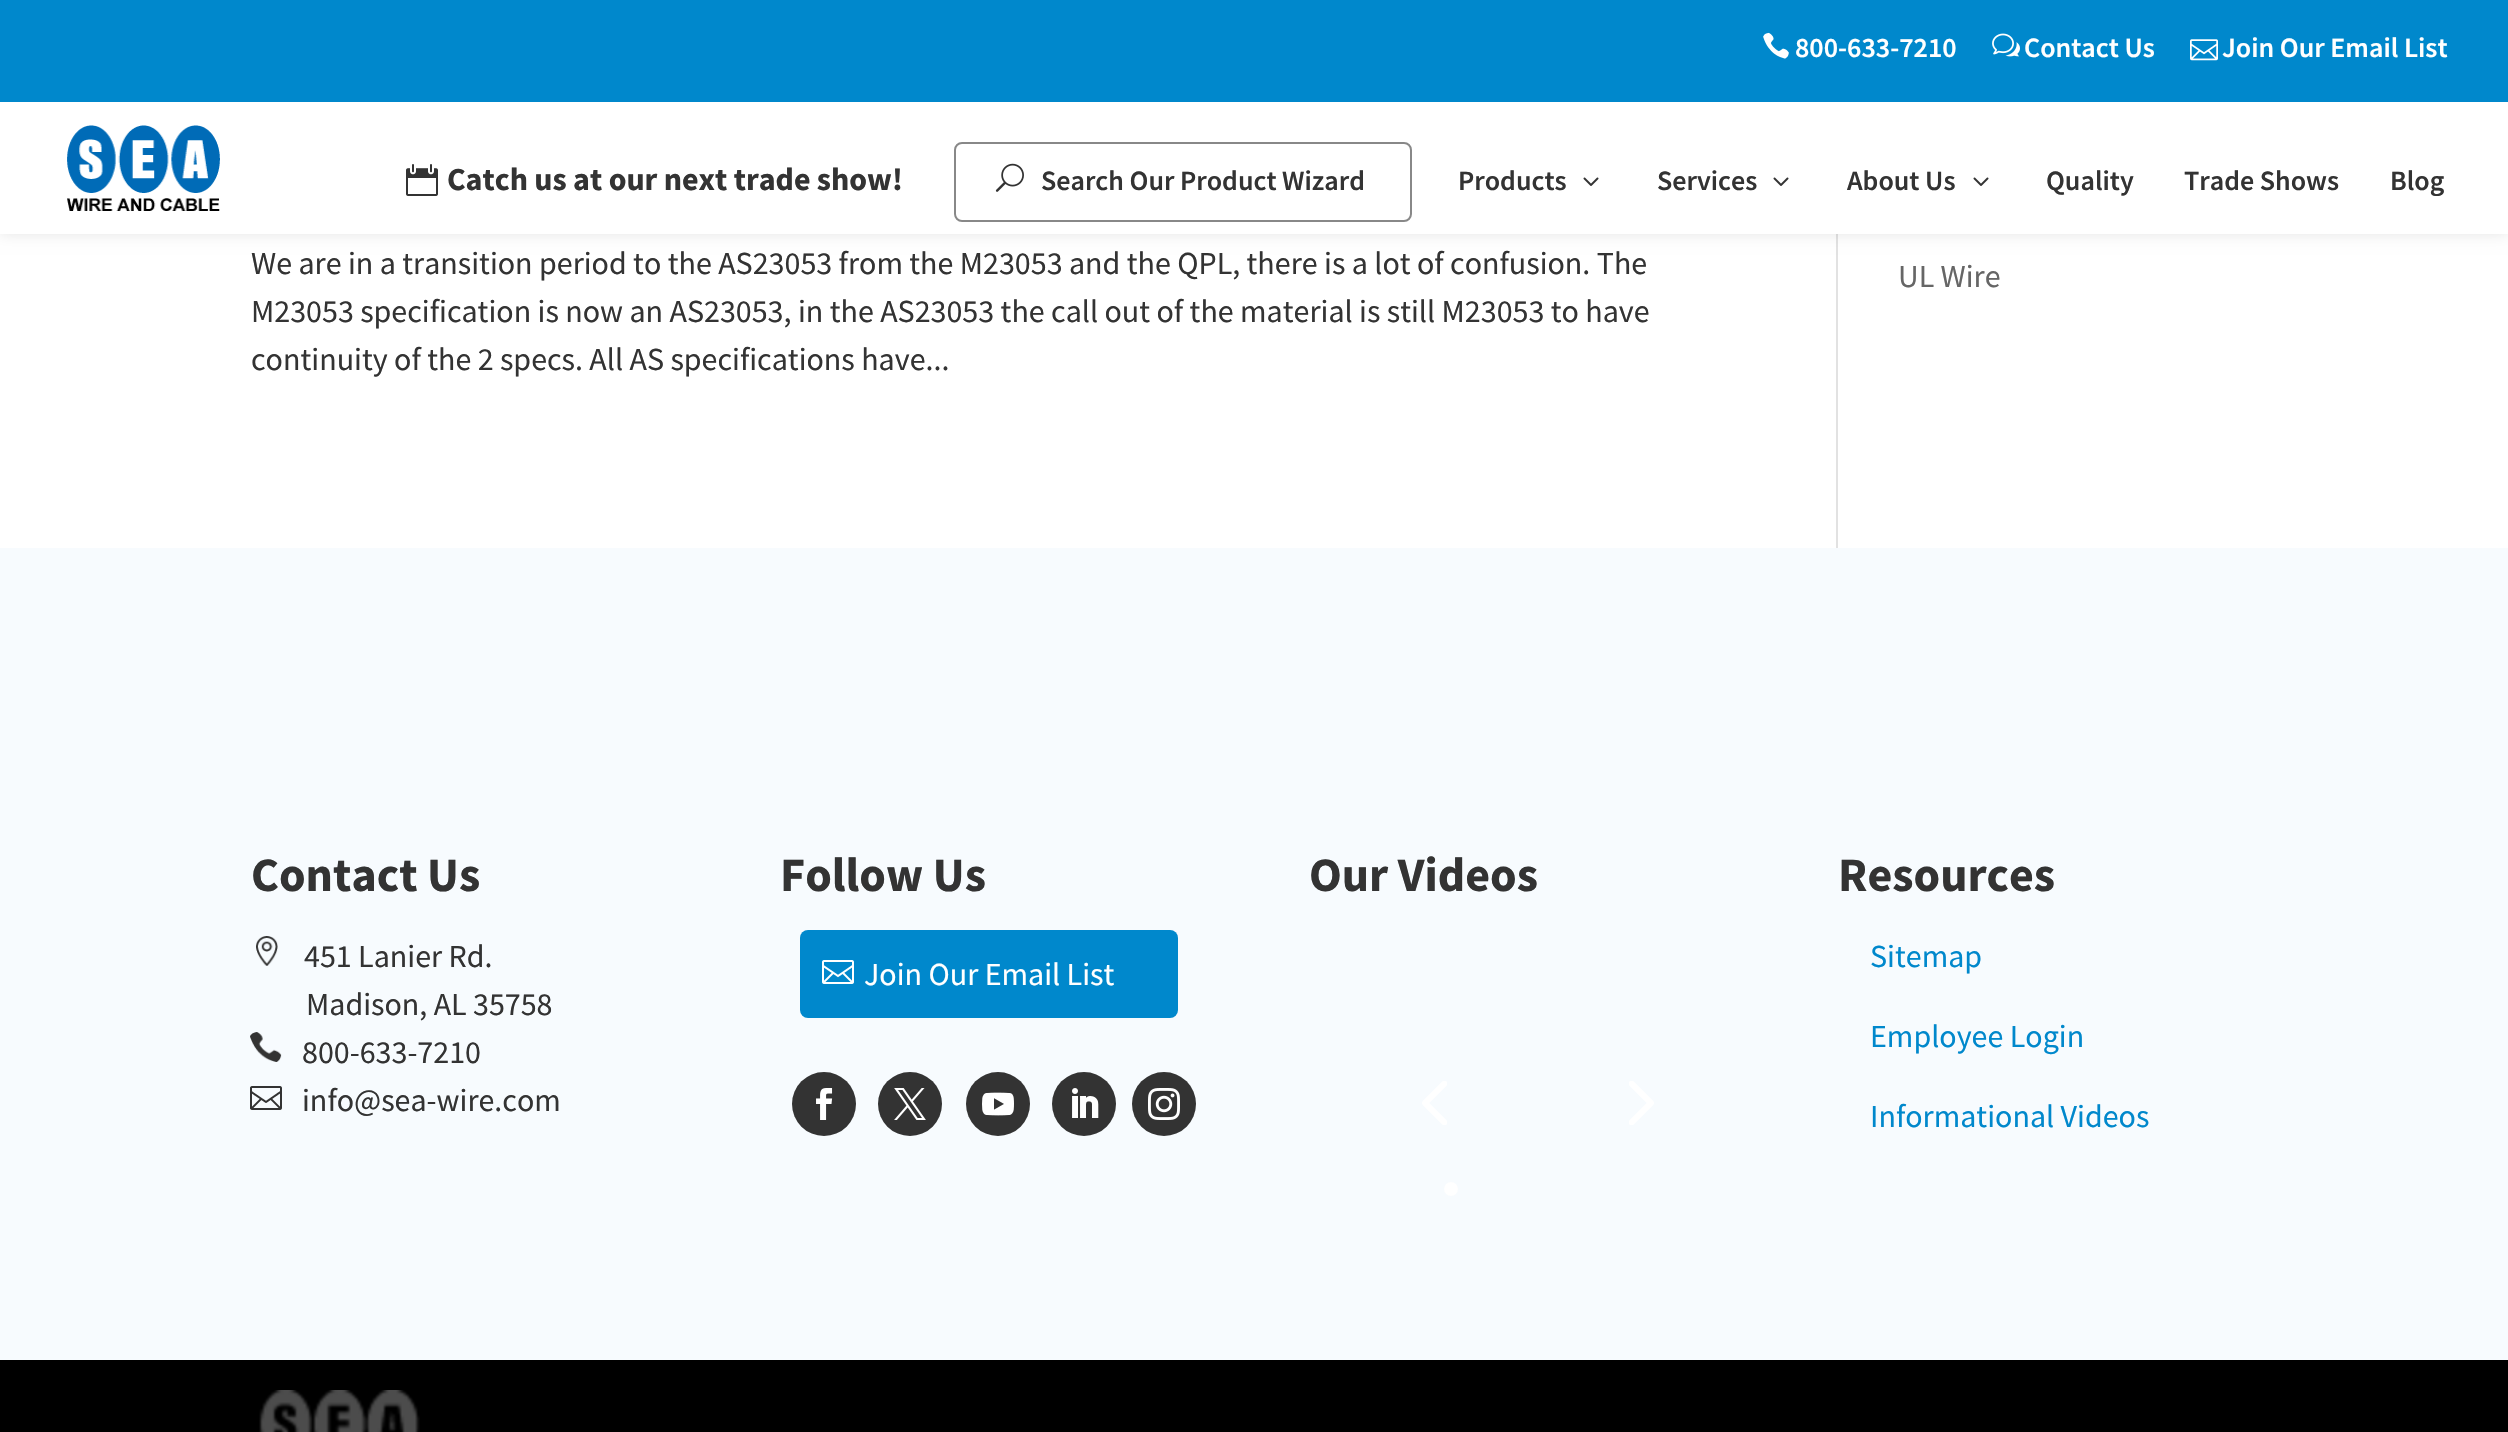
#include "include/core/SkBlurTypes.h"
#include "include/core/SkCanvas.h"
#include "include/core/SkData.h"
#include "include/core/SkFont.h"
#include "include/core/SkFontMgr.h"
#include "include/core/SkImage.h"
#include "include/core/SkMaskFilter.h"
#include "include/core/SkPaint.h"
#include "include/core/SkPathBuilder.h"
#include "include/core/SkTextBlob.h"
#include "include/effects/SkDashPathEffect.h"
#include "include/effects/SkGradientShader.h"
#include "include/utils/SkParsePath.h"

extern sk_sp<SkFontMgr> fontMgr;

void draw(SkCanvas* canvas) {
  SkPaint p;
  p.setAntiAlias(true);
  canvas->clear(SK_ColorWHITE);
  p.setColor(SkColorSetRGB(226, 226, 226));
  canvas->drawRect(SkRect::MakeLTRB(1836, 234, 1838, 548), p);
  p.setColor(SkColorSetARGB(26, 0, 0, 0));
  p.setMaskFilter(SkMaskFilter::MakeBlur(kNormal_SkBlurStyle, 7));
  canvas->drawRect(SkRect::MakeLTRB(0, 102, 2508, 234), p);
  p.setMaskFilter(nullptr);
  p.setColor(SkColorSetRGB(0, 136, 204));
  canvas->drawRect(SkRect::MakeLTRB(0, 0, 2508, 102), p);
  canvas->drawImageRect(SkImages::DeferredFromEncodedData(SkData::MakeFromFileName("images/1.png")), SkRect::MakeLTRB(1763, 32, 1789, 59), SkSamplingOptions());
  canvas->drawImageRect(SkImages::DeferredFromEncodedData(SkData::MakeFromFileName("images/2.png")), SkRect::MakeLTRB(1992, 33, 2020, 57), SkSamplingOptions());
  canvas->drawImageRect(SkImages::DeferredFromEncodedData(SkData::MakeFromFileName("images/3.png")), SkRect::MakeLTRB(2190, 39, 2218, 61), SkSamplingOptions());
  p.setColor(SK_ColorWHITE);
  canvas->drawRect(SkRect::MakeLTRB(0, 102, 2508, 234), p);
  canvas->drawImageRect(SkImages::DeferredFromEncodedData(SkData::MakeFromFileName("images/4.png")), SkRect::MakeLTRB(67, 125, 220, 211), SkSamplingOptions());
  canvas->drawImageRect(SkImages::DeferredFromEncodedData(SkData::MakeFromFileName("images/5.png")), SkRect::MakeLTRB(406, 164, 438, 196), SkSamplingOptions());
  p.setStyle(SkPaint::kStroke_Style);
  p.setStrokeWidth(2);
  p.setColor(SkColorSetRGB(136, 136, 136));
  canvas->drawRoundRect(SkRect::MakeLTRB(955, 143, 1411, 221), 7, 7, p);
  canvas->drawImageRect(SkImages::DeferredFromEncodedData(SkData::MakeFromFileName("images/6.png")), SkRect::MakeLTRB(995, 163, 1024, 192), SkSamplingOptions());
  canvas->drawImageRect(SkImages::DeferredFromEncodedData(SkData::MakeFromFileName("images/7.png")), SkRect::MakeLTRB(1583, 177, 1599, 186), SkSamplingOptions());
  canvas->drawImageRect(SkImages::DeferredFromEncodedData(SkData::MakeFromFileName("images/7.png")), SkRect::MakeLTRB(1773, 177, 1789, 186), SkSamplingOptions());
  canvas->drawImageRect(SkImages::DeferredFromEncodedData(SkData::MakeFromFileName("images/7.png")), SkRect::MakeLTRB(1973, 177, 1989, 186), SkSamplingOptions());
  p.setStyle(SkPaint::kFill_Style);
  p.setColor(SkColorSetRGB(247, 251, 254));
  canvas->drawRect(SkRect::MakeLTRB(0, 548, 2508, 1360), p);
  canvas->drawImageRect(SkImages::DeferredFromEncodedData(SkData::MakeFromFileName("images/8.png")), SkRect::MakeLTRB(256, 936, 278, 966), SkSamplingOptions());
  canvas->drawImageRect(SkImages::DeferredFromEncodedData(SkData::MakeFromFileName("images/9.png")), SkRect::MakeLTRB(250, 1032, 282, 1062), SkSamplingOptions());
  canvas->drawImageRect(SkImages::DeferredFromEncodedData(SkData::MakeFromFileName("images/10.png")), SkRect::MakeLTRB(250, 1086, 282, 1110), SkSamplingOptions());
  p.setColor(SkColorSetRGB(0, 136, 204));
  canvas->drawRoundRect(SkRect::MakeLTRB(800, 930, 1178, 1018), 8, 8, p);
  canvas->drawImageRect(SkImages::DeferredFromEncodedData(SkData::MakeFromFileName("images/11.png")), SkRect::MakeLTRB(822, 960, 854, 984), SkSamplingOptions());
  p.setColor(SkColorSetRGB(51, 51, 51));
  canvas->drawCircle(824, 1104, 32, p);
  canvas->drawImageRect(SkImages::DeferredFromEncodedData(SkData::MakeFromFileName("images/12.png")), SkRect::MakeLTRB(816, 1088, 833, 1120), SkSamplingOptions());
  canvas->drawCircle(910, 1104, 32, p);
  canvas->drawImageRect(SkImages::DeferredFromEncodedData(SkData::MakeFromFileName("images/13.png")), SkRect::MakeLTRB(894, 1088, 926, 1120), SkSamplingOptions());
  canvas->drawCircle(998, 1104, 32, p);
  canvas->drawImageRect(SkImages::DeferredFromEncodedData(SkData::MakeFromFileName("images/14.png")), SkRect::MakeLTRB(982, 1092, 1014, 1116), SkSamplingOptions());
  canvas->drawCircle(1084, 1104, 32, p);
  canvas->drawImageRect(SkImages::DeferredFromEncodedData(SkData::MakeFromFileName("images/15.png")), SkRect::MakeLTRB(1072, 1088, 1099, 1118), SkSamplingOptions());
  canvas->drawCircle(1164, 1104, 32, p);
  canvas->drawImageRect(SkImages::DeferredFromEncodedData(SkData::MakeFromFileName("images/16.png")), SkRect::MakeLTRB(1148, 1088, 1180, 1120), SkSamplingOptions());
  canvas->drawImageRect(SkImages::DeferredFromEncodedData(SkData::MakeFromFileName("images/17.png")), SkRect::MakeLTRB(1422, 1081, 1447, 1125), SkSamplingOptions());
  canvas->drawImageRect(SkImages::DeferredFromEncodedData(SkData::MakeFromFileName("images/18.png")), SkRect::MakeLTRB(1629, 1081, 1654, 1125), SkSamplingOptions());
  p.setColor(SK_ColorWHITE);
  canvas->drawCircle(1451, 1189, 7, p);
  p.setColor(SK_ColorBLACK);
  canvas->drawRect(SkRect::MakeLTRB(0, 1360, 2508, 1432), p);
  canvas->drawImageRect(SkImages::DeferredFromEncodedData(SkData::MakeFromFileName("images/19.png")), SkRect::MakeLTRB(259, 1390, 420, 1432), SkSamplingOptions());
  SkFont font1(fontMgr->matchFamilyStyle("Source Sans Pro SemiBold", SkFontStyle(600, SkFontStyle::kNormal_Width, SkFontStyle::kUpright_Slant)), 28);
  font1.setSubpixel(true);
  p.setColor(SK_ColorWHITE);
  canvas->drawString("800-633-7210", 1795, 57, font1, p);
  canvas->drawString("Contact Us", 2024, 57, font1, p);
  canvas->drawString("Join Our Email List", 2222, 57, font1, p);
  SkFont font2(fontMgr->matchFamilyStyle("Source Sans Pro", SkFontStyle::Bold()), 32);
  font2.setSubpixel(true);
  p.setColor(SkColorSetRGB(51, 51, 51));
  canvas->drawString("Catch us at our next trade show!", 447, 190, font2, p);
  canvas->drawString("Search Our Product Wizard", 1041, 190, font1, p);
  canvas->drawString("Products", 1458, 190, font1, p);
  canvas->drawString("Services", 1657, 190, font1, p);
  canvas->drawString("About Us", 1847, 190, font1, p);
  canvas->drawString("Quality", 2046, 190, font1, p);
  canvas->drawString("Trade Shows", 2184, 190, font1, p);
  canvas->drawString("Blog", 2390, 190, font1, p);
  SkFont font3(fontMgr->matchFamilyStyle("Source Sans Pro", SkFontStyle::Normal()), 32);
  font3.setSubpixel(true);
  canvas->drawString("We are in a transition period to the AS23053 from the M23053 and the QPL, there is a lot of confusion. The", 251, 274, font3, p);
  canvas->drawString("M23053 specification is now an AS23053, in the AS23053 the call out of the material is still M23053 to have", 251, 322, font3, p);
  canvas->drawString("continuity of the 2 specs. All AS specifications have...", 251, 370, font3, p);
  p.setColor(SkColorSetRGB(102, 102, 102));
  canvas->drawString("UL Wire", 1898, 287, font3, p);
  SkFont font4(fontMgr->matchFamilyStyle("Source Sans Pro", SkFontStyle::Bold()), 48);
  font4.setSubpixel(true);
  p.setColor(SkColorSetRGB(51, 51, 51));
  canvas->drawString("Contact Us", 251, 891, font4, p);
  canvas->drawString("451 Lanier Rd.", 304, 967, font3, p);
  canvas->drawString("Madison, AL 35758", 306, 1015, font3, p);
  canvas->drawString("800-633-7210", 302, 1063, font3, p);
  canvas->drawString("info@sea-wire.com", 302, 1111, font3, p);
  canvas->drawString("Follow Us", 780, 891, font4, p);
  p.setColor(SK_ColorWHITE);
  canvas->drawString("Join Our Email List", 864, 985, font3, p);
  p.setColor(SkColorSetRGB(51, 51, 51));
  canvas->drawString("Our Videos", 1309, 891, font4, p);
  canvas->drawString("Resources", 1838, 891, font4, p);
  p.setColor(SkColorSetRGB(0, 136, 204));
  canvas->drawString("Sitemap", 1870, 967, font3, p);
  canvas->drawString("Employee Login", 1870, 1047, font3, p);
  canvas->drawString("Informational Videos", 1870, 1127, font3, p);
}
